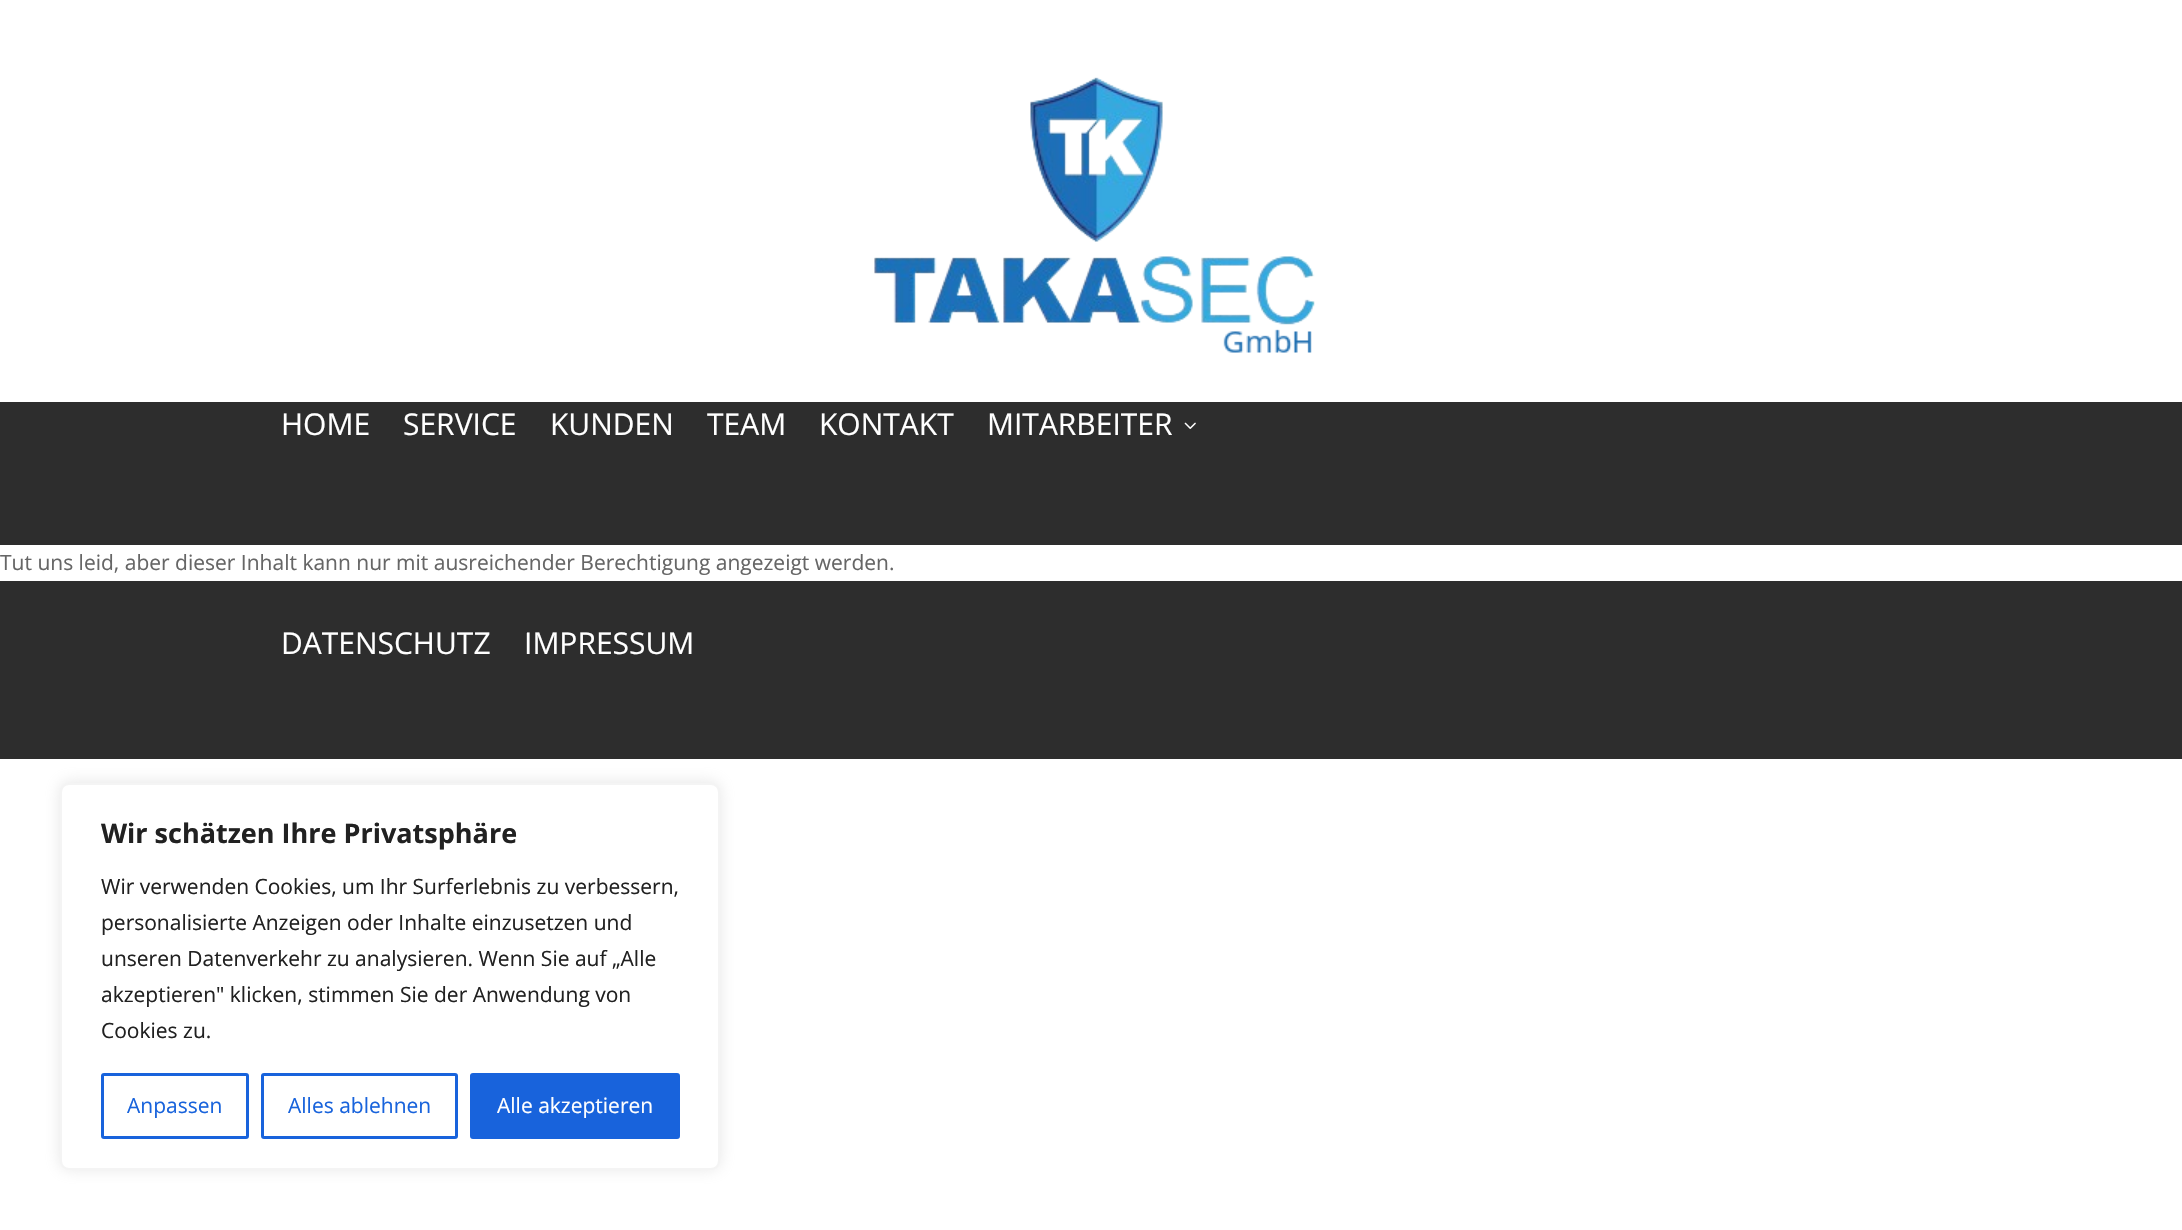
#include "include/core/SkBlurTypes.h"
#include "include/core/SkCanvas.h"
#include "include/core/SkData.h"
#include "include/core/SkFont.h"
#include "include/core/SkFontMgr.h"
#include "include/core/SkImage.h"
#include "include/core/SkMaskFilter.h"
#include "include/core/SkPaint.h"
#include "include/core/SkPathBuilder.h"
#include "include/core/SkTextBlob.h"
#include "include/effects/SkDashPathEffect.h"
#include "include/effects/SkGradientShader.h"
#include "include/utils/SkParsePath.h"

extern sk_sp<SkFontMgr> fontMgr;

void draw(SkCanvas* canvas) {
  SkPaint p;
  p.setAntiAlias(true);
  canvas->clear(SK_ColorWHITE);
  canvas->drawImageRect(SkImages::DeferredFromEncodedData(SkData::MakeFromFileName("images/1.png")), SkRect::MakeLTRB(874, 77, 1315, 353), SkSamplingOptions());
  p.setColor(SkColorSetRGB(45, 45, 45));
  canvas->drawRect(SkRect::MakeLTRB(0, 402, 2182, 545), p);
  canvas->drawImageRect(SkImages::DeferredFromEncodedData(SkData::MakeFromFileName("images/2.png")), SkRect::MakeLTRB(1184, 422, 1196, 429), SkSamplingOptions());
  canvas->drawRect(SkRect::MakeLTRB(0, 581, 2182, 759), p);
  p.setColor(SkColorSetARGB(77, 172, 171, 171));
  p.setMaskFilter(SkMaskFilter::MakeBlur(kNormal_SkBlurStyle, 7.5f));
  canvas->drawRoundRect(SkRect::MakeLTRB(60, 782, 720, 1169), 9, 9, p);
  p.setMaskFilter(nullptr);
  p.setColor(SK_ColorWHITE);
  canvas->drawRoundRect(SkRect::MakeLTRB(61, 784, 719, 1169), 8, 8, p);
  p.setStyle(SkPaint::kStroke_Style);
  p.setStrokeWidth(2);
  p.setColor(SkColorSetRGB(244, 244, 244));
  canvas->drawRoundRect(SkRect::MakeLTRB(61, 784, 719, 1169), 8, 8, p);
  p.setStrokeWidth(3);
  p.setColor(SkColorSetRGB(24, 99, 220));
  canvas->drawRoundRect(SkRect::MakeLTRB(102.5f, 1074.5f, 247.5f, 1137.5f), 1.5f, 1.5f, p);
  canvas->drawRoundRect(SkRect::MakeLTRB(262.5f, 1074.5f, 456.5f, 1137.5f), 1.5f, 1.5f, p);
  p.setStyle(SkPaint::kFill_Style);
  canvas->drawRoundRect(SkRect::MakeLTRB(471.5f, 1074.5f, 678.5f, 1137.5f), 1.5f, 1.5f, p);
  p.setStyle(SkPaint::kStroke_Style);
  canvas->drawRoundRect(SkRect::MakeLTRB(471.5f, 1074.5f, 678.5f, 1137.5f), 1.5f, 1.5f, p);
  SkFont font1(fontMgr->matchFamilyStyle("Open Sans", SkFontStyle::Normal()), 30);
  font1.setSubpixel(true);
  p.setStyle(SkPaint::kFill_Style);
  p.setColor(SK_ColorWHITE);
  canvas->drawString("HOME", 281, 435, font1, p);
  canvas->drawString("SERVICE", 403, 435, font1, p);
  canvas->drawString("KUNDEN", 550, 435, font1, p);
  canvas->drawString("TEAM", 707, 435, font1, p);
  canvas->drawString("KONTAKT", 819, 435, font1, p);
  canvas->drawString("MITARBEITER", 987, 435, font1, p);
  SkFont font2(fontMgr->matchFamilyStyle("Open Sans", SkFontStyle::Normal()), 21);
  font2.setSubpixel(true);
  p.setColor(SkColorSetRGB(102, 102, 102));
  canvas->drawString("Tut uns leid, aber dieser Inhalt kann nur mit ausreichender Berechtigung angezeigt werden.", 0, 570, font2, p);
  p.setColor(SK_ColorWHITE);
  canvas->drawString("DATENSCHUTZ", 281, 654, font1, p);
  canvas->drawString("IMPRESSUM", 524, 654, font1, p);
  SkFont font3(fontMgr->matchFamilyStyle("Open Sans", SkFontStyle::Bold()), 27);
  font3.setSubpixel(true);
  p.setColor(SkColorSetRGB(33, 33, 33));
  canvas->drawString("Wir schätzen Ihre Privatsphäre", 101, 843, font3, p);
  canvas->drawString("Wir verwenden Cookies, um Ihr Surferlebnis zu verbessern,", 101, 894, font2, p);
  canvas->drawString("personalisierte Anzeigen oder Inhalte einzusetzen und", 101, 930, font2, p);
  canvas->drawString("unseren Datenverkehr zu analysieren. Wenn Sie auf „Alle", 101, 966, font2, p);
  canvas->drawString("akzeptieren\" klicken, stimmen Sie der Anwendung von", 101, 1002, font2, p);
  canvas->drawString("Cookies zu.", 101, 1038, font2, p);
  p.setColor(SkColorSetRGB(24, 99, 220));
  canvas->drawString("Anpassen", 127, 1113, font2, p);
  canvas->drawString("Alles ablehnen", 288, 1113, font2, p);
  p.setColor(SK_ColorWHITE);
  canvas->drawString("Alle akzeptieren", 497, 1113, font2, p);
}
